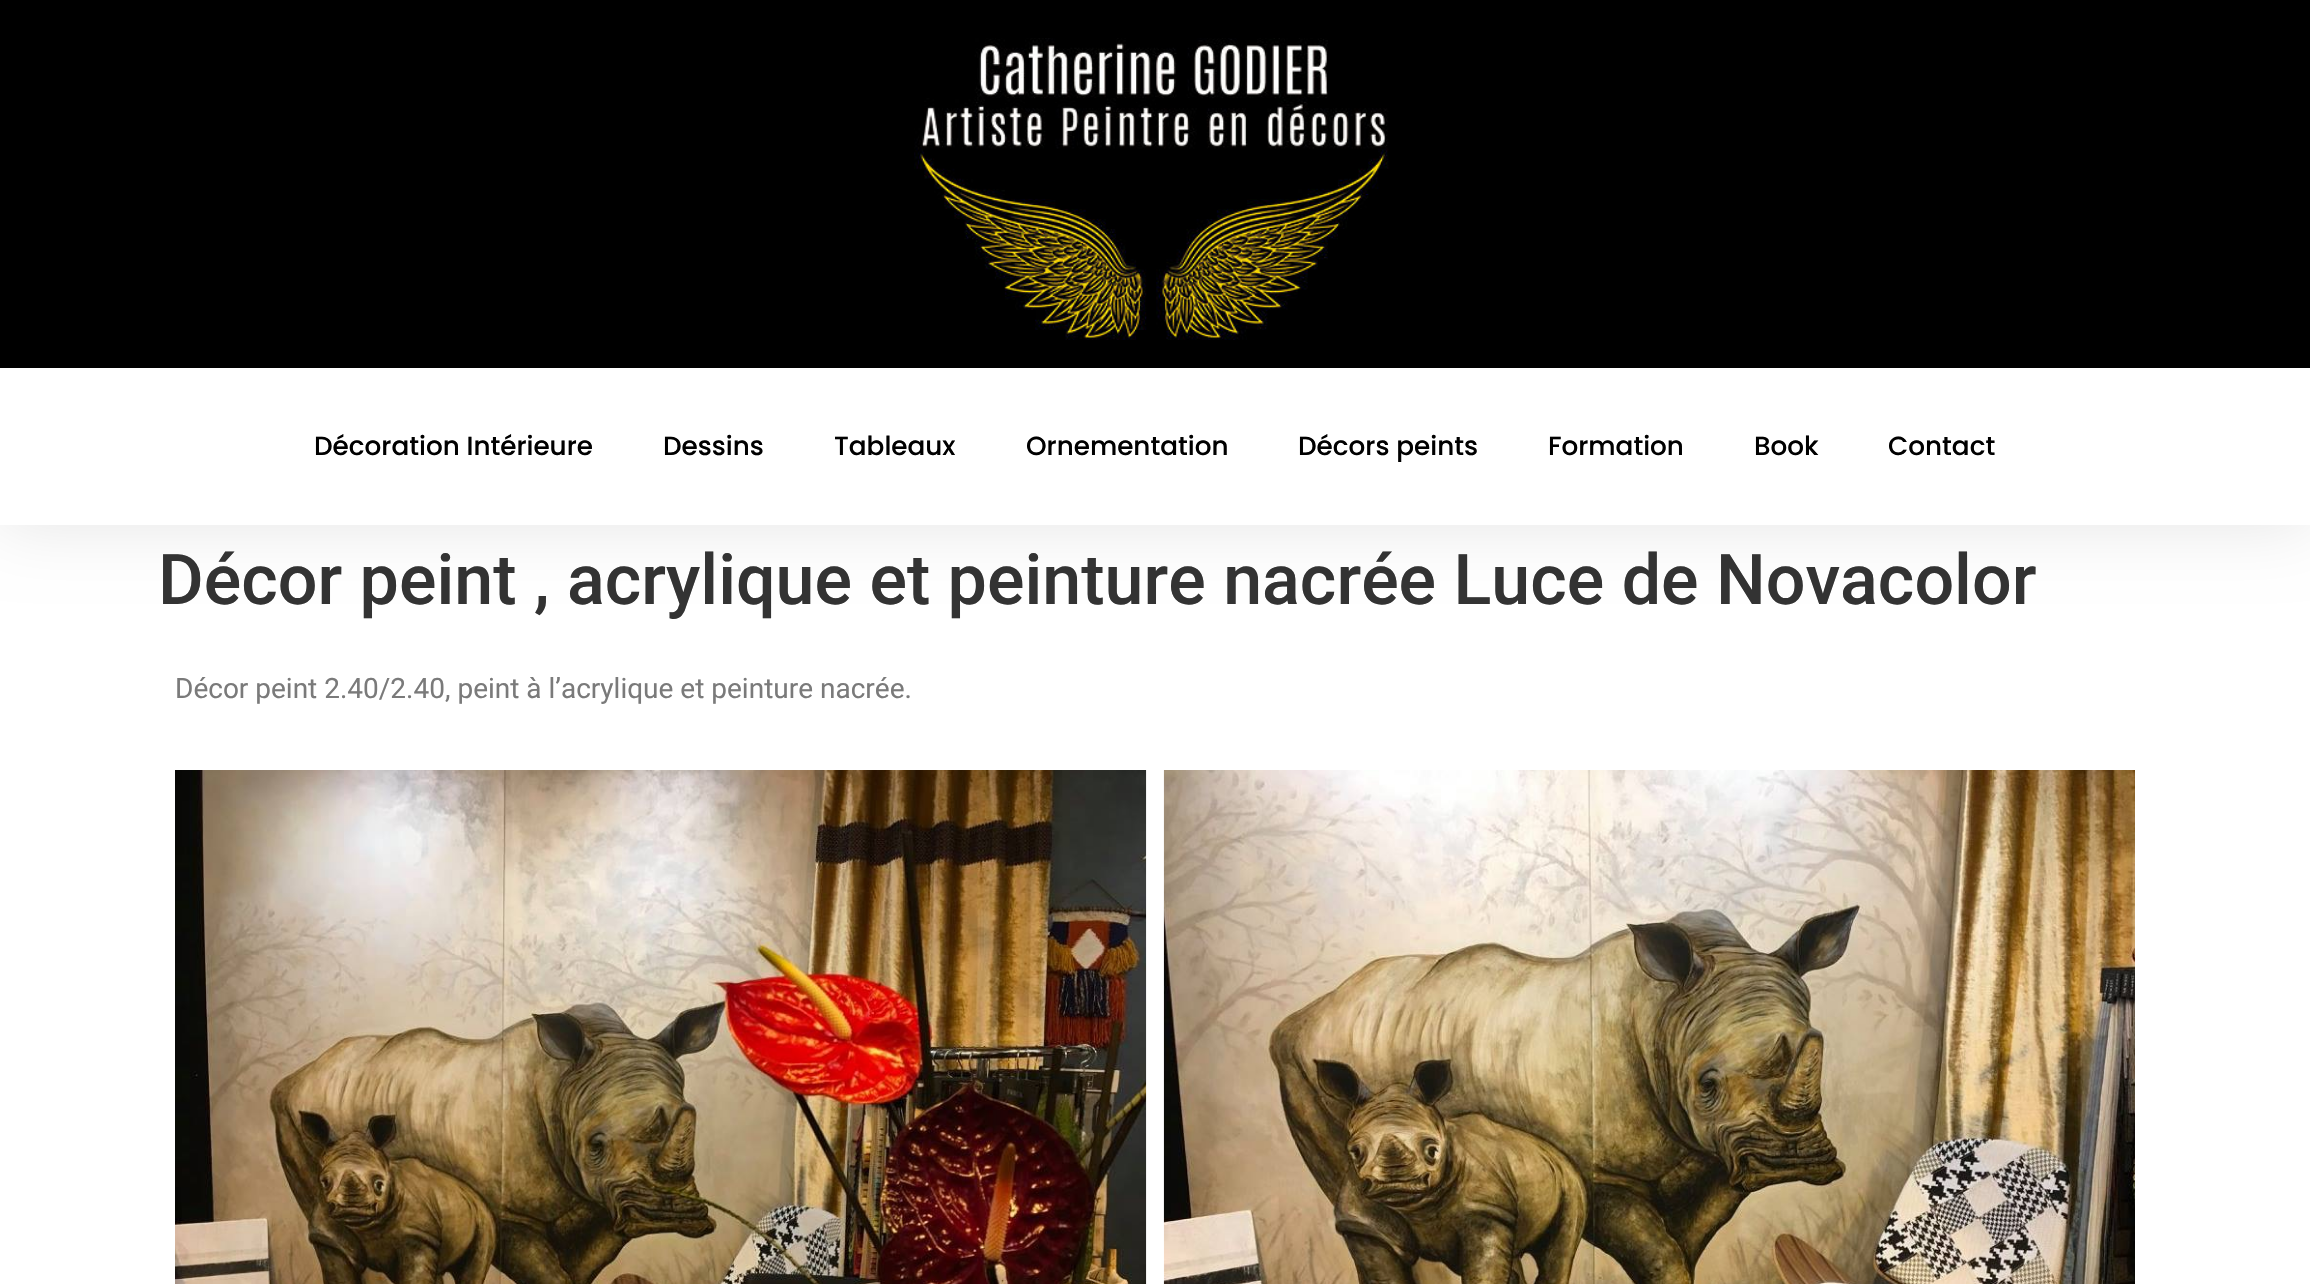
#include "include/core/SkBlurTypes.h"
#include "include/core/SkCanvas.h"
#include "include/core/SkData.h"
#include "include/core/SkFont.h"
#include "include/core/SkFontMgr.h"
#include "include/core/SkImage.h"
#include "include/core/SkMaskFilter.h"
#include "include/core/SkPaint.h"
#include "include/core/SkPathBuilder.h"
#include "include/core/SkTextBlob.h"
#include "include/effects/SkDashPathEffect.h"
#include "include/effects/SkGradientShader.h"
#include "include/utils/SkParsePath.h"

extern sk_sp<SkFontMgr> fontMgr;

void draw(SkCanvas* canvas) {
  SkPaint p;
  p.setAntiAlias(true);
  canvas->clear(SK_ColorWHITE);
  p.setColor(SK_ColorBLACK);
  canvas->drawRect(SkRect::MakeLTRB(0, 0, 2310, 368), p);
  canvas->drawImageRect(SkImages::DeferredFromEncodedData(SkData::MakeFromFileName("images/1.png")), SkRect::MakeLTRB(914, 38, 1389, 340), SkSamplingOptions());
  canvas->save();
  canvas->clipPath(SkPathBuilder(SkPathFillType::kEvenOdd).moveTo(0, 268).lineTo(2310, 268).lineTo(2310, 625).lineTo(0, 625).close().moveTo(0, 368).lineTo(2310, 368).lineTo(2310, 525).lineTo(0, 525).close().detach(), true);
  p.setColor(SkColorSetARGB(26, 0, 0, 0));
  p.setMaskFilter(SkMaskFilter::MakeBlur(kNormal_SkBlurStyle, 33));
  canvas->drawRect(SkRect::MakeLTRB(0, 368, 2310, 525), p);
  p.setMaskFilter(nullptr);
  canvas->restore();
  canvas->drawImageRect(SkImages::DeferredFromEncodedData(SkData::MakeFromFileName("images/2.png")), SkRect::MakeLTRB(175, 770, 1147, 1284), SkSamplingOptions());
  canvas->drawImageRect(SkImages::DeferredFromEncodedData(SkData::MakeFromFileName("images/3.png")), SkRect::MakeLTRB(1163, 770, 2135, 1284), SkSamplingOptions());
  SkFont font1(fontMgr->matchFamilyStyle("Poppins", SkFontStyle(500, SkFontStyle::kNormal_Width, SkFontStyle::kUpright_Slant)), 26.25f);
  font1.setSubpixel(true);
  p.setColor(SK_ColorBLACK);
  canvas->drawString("Décoration Intérieure", 314, 455, font1, p);
  canvas->drawString("Dessins", 663, 455, font1, p);
  canvas->drawString("Tableaux", 834, 455, font1, p);
  canvas->drawString("Ornementation", 1026, 455, font1, p);
  canvas->drawString("Décors peints", 1298, 455, font1, p);
  canvas->drawString("Formation", 1548, 455, font1, p);
  canvas->drawString("Book", 1754, 455, font1, p);
  canvas->drawString("Contact", 1888, 455, font1, p);
  SkFont font2(fontMgr->matchFamilyStyle("Roboto", SkFontStyle(500, SkFontStyle::kNormal_Width, SkFontStyle::kUpright_Slant)), 70);
  font2.setSubpixel(true);
  p.setColor(SkColorSetRGB(51, 51, 51));
  canvas->drawString("Décor peint , acrylique et peinture nacrée Luce de Novacolor", 158, 604, font2, p);
  SkFont font3(fontMgr->matchFamilyStyle("Roboto", SkFontStyle::Normal()), 28);
  font3.setSubpixel(true);
  p.setColor(SkColorSetRGB(122, 122, 122));
  canvas->drawString("Décor peint 2.40/2.40, peint à l’acrylique et peinture nacrée.", 175, 698, font3, p);
}
